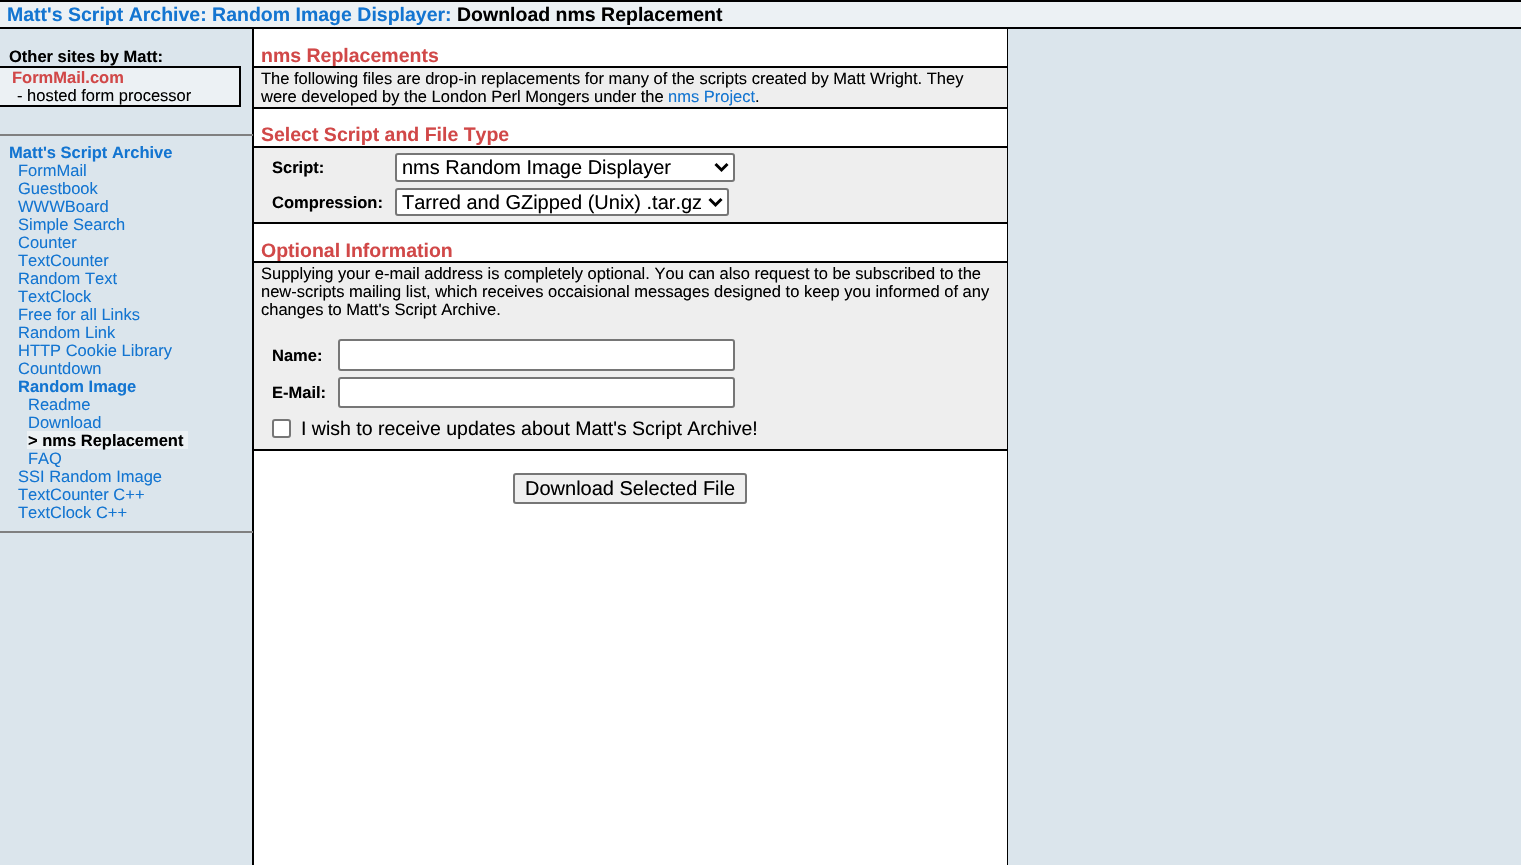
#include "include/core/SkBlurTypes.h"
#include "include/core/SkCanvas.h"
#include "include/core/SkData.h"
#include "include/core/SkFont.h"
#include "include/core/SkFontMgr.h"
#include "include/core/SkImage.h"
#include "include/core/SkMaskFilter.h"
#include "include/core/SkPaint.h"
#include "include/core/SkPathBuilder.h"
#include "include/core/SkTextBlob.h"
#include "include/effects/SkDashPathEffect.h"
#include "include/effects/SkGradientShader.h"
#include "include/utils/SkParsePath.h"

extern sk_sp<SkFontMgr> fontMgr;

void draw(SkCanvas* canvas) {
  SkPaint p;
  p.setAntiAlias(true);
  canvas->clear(SK_ColorWHITE);
  p.setColor(SkColorSetRGB(236, 241, 244));
  canvas->drawRect(SkRect::MakeLTRB(0, 2, 1521, 27), p);
  p.setColor(SK_ColorBLACK);
  canvas->drawRect(SkRect::MakeLTRB(0, 0, 1521, 2), p);
  canvas->drawRect(SkRect::MakeLTRB(0, 27, 1521, 29), p);
  p.setColor(SkColorSetRGB(219, 229, 236));
  canvas->drawRect(SkRect::MakeLTRB(0, 29, 252, 865), p);
  p.setColor(SkColorSetRGB(236, 241, 244));
  canvas->drawRect(SkRect::MakeLTRB(0, 68, 239, 105), p);
  p.setColor(SK_ColorBLACK);
  canvas->drawRect(SkRect::MakeLTRB(0, 66, 240, 68), p);
  canvas->drawRect(SkRect::MakeLTRB(239, 66, 241, 107), p);
  canvas->drawRect(SkRect::MakeLTRB(0, 105, 240, 107), p);
  canvas->drawRect(SkRect::MakeLTRB(252, 29, 254, 865), p);
  p.setColor(SkColorSetRGB(128, 128, 128));
  canvas->drawRect(SkRect::MakeLTRB(0, 134, 253, 136), p);
  p.setColor(SkColorSetRGB(236, 241, 244));
  canvas->drawRect(SkRect::MakeLTRB(27, 431, 188, 449), p);
  p.setColor(SkColorSetRGB(128, 128, 128));
  canvas->drawRect(SkRect::MakeLTRB(0, 531, 253, 533), p);
  p.setColor(SkColorSetRGB(238, 238, 238));
  canvas->drawRect(SkRect::MakeLTRB(254, 68, 1007, 107), p);
  p.setColor(SK_ColorBLACK);
  canvas->drawRect(SkRect::MakeLTRB(254, 66, 1007, 68), p);
  canvas->drawRect(SkRect::MakeLTRB(254, 107, 1007, 109), p);
  p.setColor(SkColorSetRGB(238, 238, 238));
  canvas->drawRect(SkRect::MakeLTRB(254, 148, 1007, 222), p);
  p.setColor(SK_ColorBLACK);
  canvas->drawRect(SkRect::MakeLTRB(254, 146, 1007, 148), p);
  canvas->drawRect(SkRect::MakeLTRB(254, 222, 1007, 224), p);
  p.setColor(SK_ColorWHITE);
  canvas->drawRoundRect(SkRect::MakeLTRB(396, 154, 734, 181), 2, 2, p);
  p.setStyle(SkPaint::kStroke_Style);
  p.setStrokeWidth(2);
  p.setColor(SkColorSetRGB(118, 118, 118));
  canvas->drawRoundRect(SkRect::MakeLTRB(396, 154, 734, 181), 2, 2, p);
  p.setStrokeWidth(3);
  p.setColor(SK_ColorBLACK);
  canvas->drawPath(SkPathBuilder().moveTo(715.5f, 164).lineTo(721.5f, 170).lineTo(727.5f, 164).detach(), p);
  p.setStyle(SkPaint::kFill_Style);
  p.setColor(SK_ColorWHITE);
  canvas->drawRoundRect(SkRect::MakeLTRB(396, 189, 728, 215), 2, 2, p);
  p.setStyle(SkPaint::kStroke_Style);
  p.setStrokeWidth(2);
  p.setColor(SkColorSetRGB(118, 118, 118));
  canvas->drawRoundRect(SkRect::MakeLTRB(396, 189, 728, 215), 2, 2, p);
  p.setStrokeWidth(3);
  p.setColor(SK_ColorBLACK);
  canvas->drawPath(SkPathBuilder().moveTo(709.5f, 199).lineTo(715.5f, 205).lineTo(721.5f, 199).detach(), p);
  p.setStyle(SkPaint::kFill_Style);
  p.setColor(SkColorSetRGB(238, 238, 238));
  canvas->drawRect(SkRect::MakeLTRB(254, 263, 1007, 449), p);
  p.setColor(SK_ColorBLACK);
  canvas->drawRect(SkRect::MakeLTRB(254, 261, 1007, 263), p);
  canvas->drawRect(SkRect::MakeLTRB(254, 449, 1007, 451), p);
  p.setColor(SK_ColorWHITE);
  canvas->drawRoundRect(SkRect::MakeLTRB(339, 340, 734, 370), 2, 2, p);
  p.setStyle(SkPaint::kStroke_Style);
  p.setStrokeWidth(2);
  p.setColor(SkColorSetRGB(118, 118, 118));
  canvas->drawRoundRect(SkRect::MakeLTRB(339, 340, 734, 370), 2, 2, p);
  p.setStyle(SkPaint::kFill_Style);
  p.setColor(SK_ColorWHITE);
  canvas->drawRoundRect(SkRect::MakeLTRB(339, 378, 734, 407), 2, 2, p);
  p.setStyle(SkPaint::kStroke_Style);
  p.setColor(SkColorSetRGB(118, 118, 118));
  canvas->drawRoundRect(SkRect::MakeLTRB(339, 378, 734, 407), 2, 2, p);
  p.setStyle(SkPaint::kFill_Style);
  p.setColor(SK_ColorWHITE);
  canvas->drawRoundRect(SkRect::MakeLTRB(273, 420, 290, 437), 2, 2, p);
  p.setStyle(SkPaint::kStroke_Style);
  p.setColor(SkColorSetRGB(118, 118, 118));
  canvas->drawRoundRect(SkRect::MakeLTRB(273, 420, 290, 437), 2, 2, p);
  p.setStyle(SkPaint::kFill_Style);
  p.setColor(SkColorSetRGB(239, 239, 239));
  canvas->drawRoundRect(SkRect::MakeLTRB(514, 474, 746, 503), 2, 2, p);
  p.setStyle(SkPaint::kStroke_Style);
  p.setColor(SkColorSetRGB(118, 118, 118));
  canvas->drawRoundRect(SkRect::MakeLTRB(514, 474, 746, 503), 2, 2, p);
  p.setStyle(SkPaint::kFill_Style);
  p.setColor(SK_ColorBLACK);
  canvas->drawRect(SkRect::MakeLTRB(1007, 29, 1008, 865), p);
  p.setColor(SkColorSetRGB(219, 229, 236));
  canvas->drawRect(SkRect::MakeLTRB(1008, 29, 1521, 865), p);
  SkFont font1(fontMgr->matchFamilyStyle("Liberation Sans", SkFontStyle::Bold()), 19.5f);
  font1.setSubpixel(true);
  p.setColor(SkColorSetRGB(19, 117, 209));
  canvas->drawString("Matt's Script Archive: Random Image Displayer:", 7, 21, font1, p);
  p.setColor(SK_ColorBLACK);
  canvas->drawString("Download nms Replacement", 457, 21, font1, p);
  SkFont font2(fontMgr->matchFamilyStyle("Liberation Sans", SkFontStyle::Bold()), 16.5f);
  font2.setSubpixel(true);
  canvas->drawString("Other sites by Matt:", 9, 62, font2, p);
  p.setColor(SkColorSetRGB(209, 72, 72));
  canvas->drawString("FormMail.com", 12, 83, font2, p);
  SkFont font3(fontMgr->matchFamilyStyle("Liberation Sans", SkFontStyle::Normal()), 16.5f);
  font3.setSubpixel(true);
  p.setColor(SK_ColorBLACK);
  canvas->drawString("- hosted form processor", 17, 101, font3, p);
  p.setColor(SkColorSetRGB(19, 117, 209));
  canvas->drawString("Matt's Script Archive", 9, 158, font2, p);
  canvas->drawString("FormMail", 18, 176, font3, p);
  canvas->drawString("Guestbook", 18, 194, font3, p);
  canvas->drawString("WWWBoard", 18, 212, font3, p);
  canvas->drawString("Simple Search", 18, 230, font3, p);
  canvas->drawString("Counter", 18, 248, font3, p);
  canvas->drawString("TextCounter", 18, 266, font3, p);
  canvas->drawString("Random Text", 18, 284, font3, p);
  canvas->drawString("TextClock", 18, 302, font3, p);
  canvas->drawString("Free for all Links", 18, 320, font3, p);
  canvas->drawString("Random Link", 18, 338, font3, p);
  canvas->drawString("HTTP Cookie Library", 18, 356, font3, p);
  canvas->drawString("Countdown", 18, 374, font3, p);
  canvas->drawString("Random Image", 18, 392, font2, p);
  canvas->drawString("Readme", 28, 410, font3, p);
  canvas->drawString("Download", 28, 428, font3, p);
  p.setColor(SK_ColorBLACK);
  canvas->drawString("> nms Replacement", 28, 446, font2, p);
  p.setColor(SkColorSetRGB(19, 117, 209));
  canvas->drawString("FAQ", 28, 464, font3, p);
  canvas->drawString("SSI Random Image", 18, 482, font3, p);
  canvas->drawString("TextCounter C++", 18, 500, font3, p);
  canvas->drawString("TextClock C++", 18, 518, font3, p);
  p.setColor(SkColorSetRGB(209, 72, 72));
  canvas->drawString("nms Replacements", 261, 62, font1, p);
  p.setColor(SK_ColorBLACK);
  canvas->drawString("The following files are drop-in replacements for many of the scripts created by Matt Wright. They", 261, 84, font3, p);
  canvas->drawString("were developed by the London Perl Mongers under the", 261, 102, font3, p);
  p.setColor(SkColorSetRGB(19, 117, 209));
  canvas->drawString("nms Project", 668, 102, font3, p);
  p.setColor(SK_ColorBLACK);
  canvas->drawString(".", 755, 102, font3, p);
  p.setColor(SkColorSetRGB(209, 72, 72));
  canvas->drawString("Select Script and File Type", 261, 141, font1, p);
  p.setColor(SK_ColorBLACK);
  canvas->drawString("Script:", 272, 173, font2, p);
  SkFont font4(fontMgr->matchFamilyStyle("Liberation Sans", SkFontStyle::Normal()), 20);
  font4.setSubpixel(true);
  canvas->drawString("nms Random Image Displayer", 402, 174, font4, p);
  canvas->drawString("Compression:", 272, 208, font2, p);
  canvas->drawString("Tarred and GZipped (Unix) .tar.gz", 402, 209, font4, p);
  p.setColor(SkColorSetRGB(209, 72, 72));
  canvas->drawString("Optional Information", 261, 257, font1, p);
  p.setColor(SK_ColorBLACK);
  canvas->drawString("Supplying your e-mail address is completely optional. You can also request to be subscribed to the", 261, 279, font3, p);
  canvas->drawString("new-scripts mailing list, which receives occaisional messages designed to keep you informed of any", 261, 297, font3, p);
  canvas->drawString("changes to Matt's Script Archive.", 261, 315, font3, p);
  canvas->drawString("Name:", 272, 361, font2, p);
  canvas->drawString("E-Mail:", 272, 398, font2, p);
  SkFont font5(fontMgr->matchFamilyStyle("Liberation Sans", SkFontStyle::Normal()), 19.5f);
  font5.setSubpixel(true);
  canvas->drawString("I wish to receive updates about Matt's Script Archive!", 301, 435, font5, p);
  canvas->drawString("Download Selected File", 525, 495, font4, p);
}
